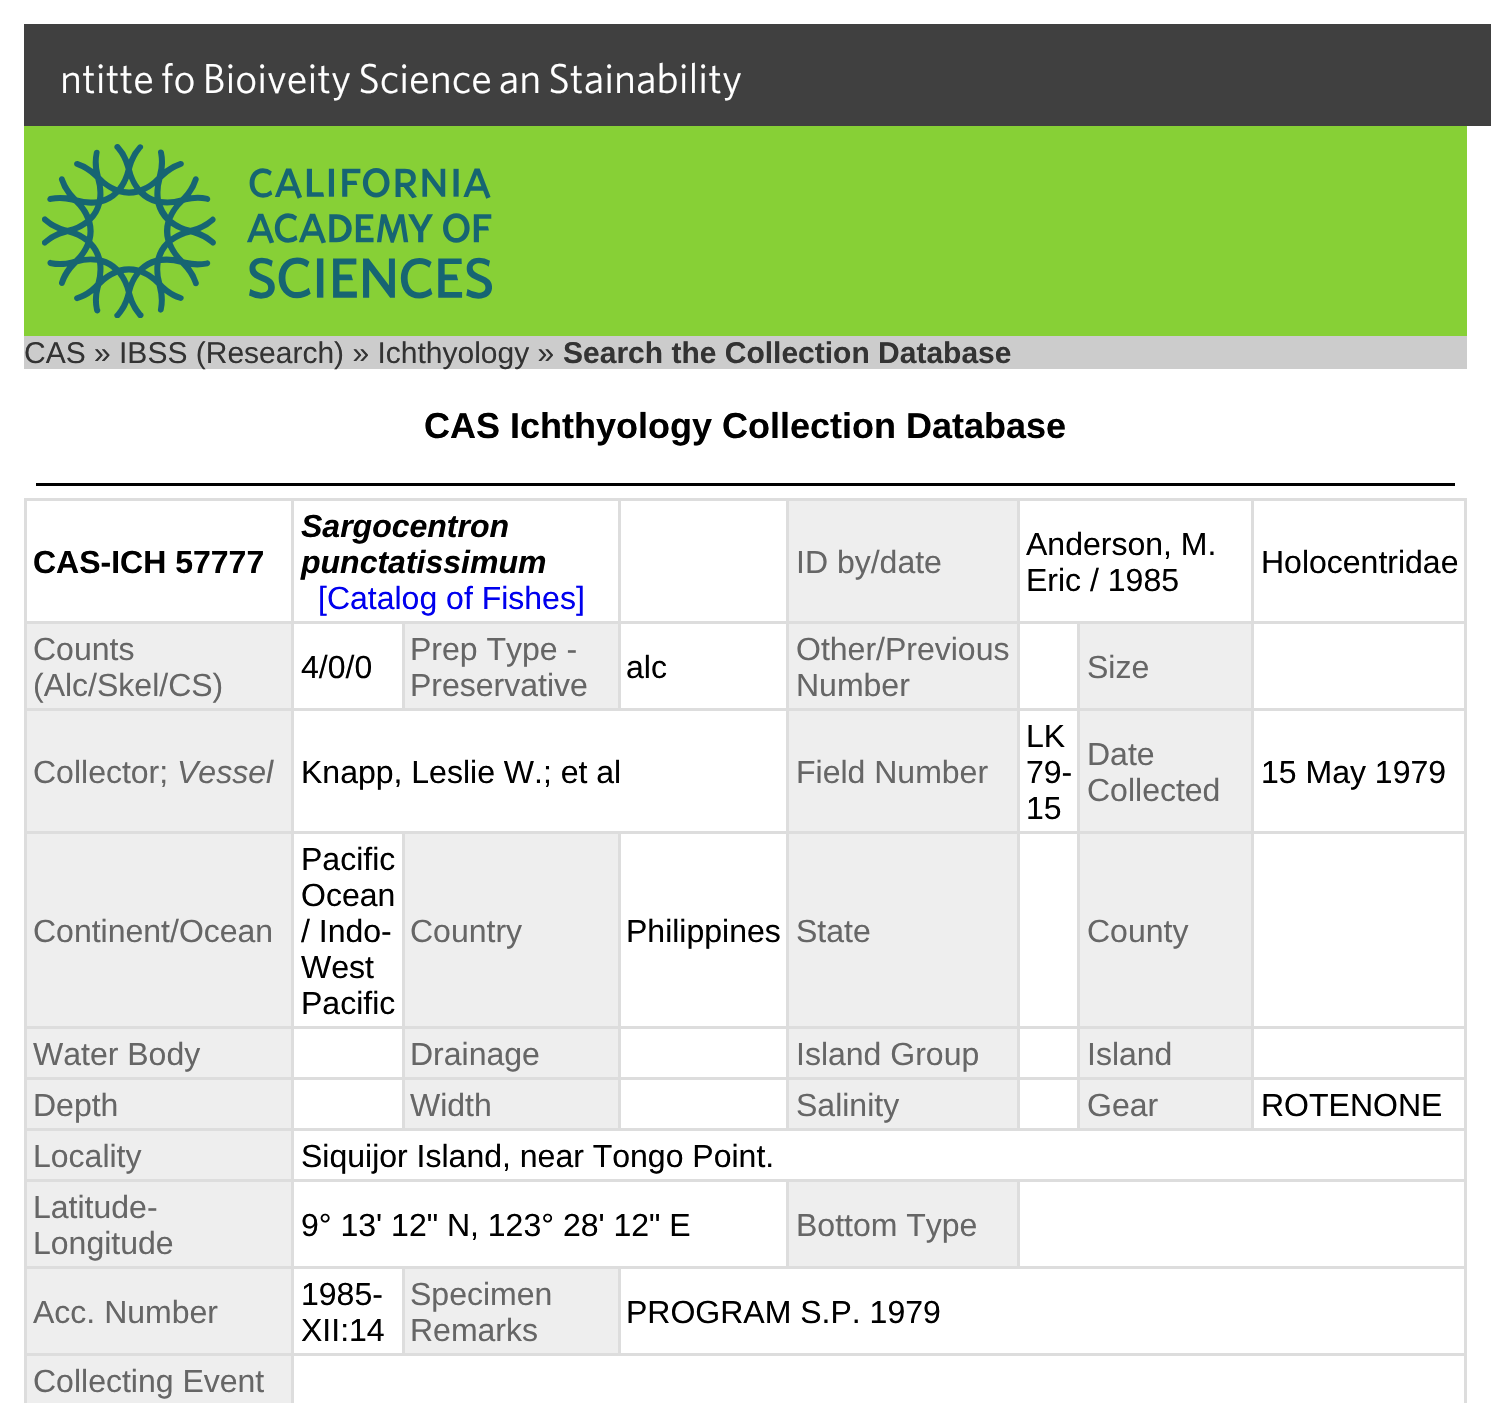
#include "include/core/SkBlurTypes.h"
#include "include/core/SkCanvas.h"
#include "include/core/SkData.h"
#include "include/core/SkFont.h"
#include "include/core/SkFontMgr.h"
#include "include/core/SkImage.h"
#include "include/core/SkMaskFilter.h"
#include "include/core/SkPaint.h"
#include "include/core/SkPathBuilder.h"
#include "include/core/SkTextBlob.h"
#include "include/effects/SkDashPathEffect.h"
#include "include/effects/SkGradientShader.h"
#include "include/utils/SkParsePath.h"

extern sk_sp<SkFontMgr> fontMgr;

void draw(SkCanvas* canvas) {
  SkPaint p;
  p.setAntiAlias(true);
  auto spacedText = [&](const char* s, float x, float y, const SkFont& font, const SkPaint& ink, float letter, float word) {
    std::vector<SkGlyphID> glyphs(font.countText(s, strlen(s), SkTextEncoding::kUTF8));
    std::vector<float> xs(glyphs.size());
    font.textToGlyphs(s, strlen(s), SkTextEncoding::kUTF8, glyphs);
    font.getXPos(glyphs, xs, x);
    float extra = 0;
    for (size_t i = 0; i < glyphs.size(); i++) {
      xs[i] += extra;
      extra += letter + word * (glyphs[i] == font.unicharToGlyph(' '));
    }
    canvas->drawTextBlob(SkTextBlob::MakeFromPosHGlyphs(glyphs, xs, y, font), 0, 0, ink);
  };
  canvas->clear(SK_ColorWHITE);
  p.setColor(SkColorSetRGB(64, 64, 64));
  canvas->drawRect(SkRect::MakeLTRB(24, 24, 1491, 126), p);
  p.setColor(SkColorSetRGB(135, 208, 54));
  canvas->drawRect(SkRect::MakeLTRB(24, 126, 1467, 336), p);
  canvas->drawImageRect(SkImages::DeferredFromEncodedData(SkData::MakeFromFileName("images/1.png")), SkRect::MakeLTRB(42, 144, 492, 318), SkSamplingOptions());
  p.setColor(SkColorSetRGB(204, 204, 204));
  canvas->drawRect(SkRect::MakeLTRB(24, 336, 1467, 369), p);
  p.setColor(SK_ColorBLACK);
  canvas->drawRect(SkRect::MakeLTRB(36, 483, 1455, 486), p);
  p.setColor(SkColorSetRGB(221, 221, 221));
  canvas->drawRect(SkRect::MakeLTRB(24, 498, 1467, 1403), p);
  p.setColor(SK_ColorWHITE);
  canvas->drawRect(SkRect::MakeLTRB(27, 501, 291, 621), p);
  canvas->drawRect(SkRect::MakeLTRB(294, 501, 618, 621), p);
  canvas->drawRect(SkRect::MakeLTRB(621, 501, 786, 621), p);
  p.setColor(SkColorSetRGB(238, 238, 238));
  canvas->drawRect(SkRect::MakeLTRB(789, 501, 1017, 621), p);
  p.setColor(SK_ColorWHITE);
  canvas->drawRect(SkRect::MakeLTRB(1020, 501, 1251, 621), p);
  canvas->drawRect(SkRect::MakeLTRB(1254, 501, 1464, 621), p);
  p.setColor(SkColorSetRGB(238, 238, 238));
  canvas->drawRect(SkRect::MakeLTRB(27, 624, 291, 708), p);
  p.setColor(SK_ColorWHITE);
  canvas->drawRect(SkRect::MakeLTRB(294, 624, 402, 708), p);
  p.setColor(SkColorSetRGB(238, 238, 238));
  canvas->drawRect(SkRect::MakeLTRB(405, 624, 618, 708), p);
  p.setColor(SK_ColorWHITE);
  canvas->drawRect(SkRect::MakeLTRB(621, 624, 786, 708), p);
  p.setColor(SkColorSetRGB(238, 238, 238));
  canvas->drawRect(SkRect::MakeLTRB(789, 624, 1017, 708), p);
  p.setColor(SK_ColorWHITE);
  canvas->drawRect(SkRect::MakeLTRB(1020, 624, 1077, 708), p);
  p.setColor(SkColorSetRGB(238, 238, 238));
  canvas->drawRect(SkRect::MakeLTRB(1080, 624, 1251, 708), p);
  p.setColor(SK_ColorWHITE);
  canvas->drawRect(SkRect::MakeLTRB(1254, 624, 1464, 708), p);
  p.setColor(SkColorSetRGB(238, 238, 238));
  canvas->drawRect(SkRect::MakeLTRB(27, 711, 291, 831), p);
  p.setColor(SK_ColorWHITE);
  canvas->drawRect(SkRect::MakeLTRB(294, 711, 786, 831), p);
  p.setColor(SkColorSetRGB(238, 238, 238));
  canvas->drawRect(SkRect::MakeLTRB(789, 711, 1017, 831), p);
  p.setColor(SK_ColorWHITE);
  canvas->drawRect(SkRect::MakeLTRB(1020, 711, 1077, 831), p);
  p.setColor(SkColorSetRGB(238, 238, 238));
  canvas->drawRect(SkRect::MakeLTRB(1080, 711, 1251, 831), p);
  p.setColor(SK_ColorWHITE);
  canvas->drawRect(SkRect::MakeLTRB(1254, 711, 1464, 831), p);
  p.setColor(SkColorSetRGB(238, 238, 238));
  canvas->drawRect(SkRect::MakeLTRB(27, 834, 291, 1026), p);
  p.setColor(SK_ColorWHITE);
  canvas->drawRect(SkRect::MakeLTRB(294, 834, 402, 1026), p);
  p.setColor(SkColorSetRGB(238, 238, 238));
  canvas->drawRect(SkRect::MakeLTRB(405, 834, 618, 1026), p);
  p.setColor(SK_ColorWHITE);
  canvas->drawRect(SkRect::MakeLTRB(621, 834, 786, 1026), p);
  p.setColor(SkColorSetRGB(238, 238, 238));
  canvas->drawRect(SkRect::MakeLTRB(789, 834, 1017, 1026), p);
  p.setColor(SK_ColorWHITE);
  canvas->drawRect(SkRect::MakeLTRB(1020, 834, 1077, 1026), p);
  p.setColor(SkColorSetRGB(238, 238, 238));
  canvas->drawRect(SkRect::MakeLTRB(1080, 834, 1251, 1026), p);
  p.setColor(SK_ColorWHITE);
  canvas->drawRect(SkRect::MakeLTRB(1254, 834, 1464, 1026), p);
  p.setColor(SkColorSetRGB(238, 238, 238));
  canvas->drawRect(SkRect::MakeLTRB(27, 1029, 291, 1077), p);
  p.setColor(SK_ColorWHITE);
  canvas->drawRect(SkRect::MakeLTRB(294, 1029, 402, 1077), p);
  p.setColor(SkColorSetRGB(238, 238, 238));
  canvas->drawRect(SkRect::MakeLTRB(405, 1029, 618, 1077), p);
  p.setColor(SK_ColorWHITE);
  canvas->drawRect(SkRect::MakeLTRB(621, 1029, 786, 1077), p);
  p.setColor(SkColorSetRGB(238, 238, 238));
  canvas->drawRect(SkRect::MakeLTRB(789, 1029, 1017, 1077), p);
  p.setColor(SK_ColorWHITE);
  canvas->drawRect(SkRect::MakeLTRB(1020, 1029, 1077, 1077), p);
  p.setColor(SkColorSetRGB(238, 238, 238));
  canvas->drawRect(SkRect::MakeLTRB(1080, 1029, 1251, 1077), p);
  p.setColor(SK_ColorWHITE);
  canvas->drawRect(SkRect::MakeLTRB(1254, 1029, 1464, 1077), p);
  p.setColor(SkColorSetRGB(238, 238, 238));
  canvas->drawRect(SkRect::MakeLTRB(27, 1080, 291, 1128), p);
  p.setColor(SK_ColorWHITE);
  canvas->drawRect(SkRect::MakeLTRB(294, 1080, 402, 1128), p);
  p.setColor(SkColorSetRGB(238, 238, 238));
  canvas->drawRect(SkRect::MakeLTRB(405, 1080, 618, 1128), p);
  p.setColor(SK_ColorWHITE);
  canvas->drawRect(SkRect::MakeLTRB(621, 1080, 786, 1128), p);
  p.setColor(SkColorSetRGB(238, 238, 238));
  canvas->drawRect(SkRect::MakeLTRB(789, 1080, 1017, 1128), p);
  p.setColor(SK_ColorWHITE);
  canvas->drawRect(SkRect::MakeLTRB(1020, 1080, 1077, 1128), p);
  p.setColor(SkColorSetRGB(238, 238, 238));
  canvas->drawRect(SkRect::MakeLTRB(1080, 1080, 1251, 1128), p);
  p.setColor(SK_ColorWHITE);
  canvas->drawRect(SkRect::MakeLTRB(1254, 1080, 1464, 1128), p);
  p.setColor(SkColorSetRGB(238, 238, 238));
  canvas->drawRect(SkRect::MakeLTRB(27, 1131, 291, 1179), p);
  p.setColor(SK_ColorWHITE);
  canvas->drawRect(SkRect::MakeLTRB(294, 1131, 1464, 1179), p);
  p.setColor(SkColorSetRGB(238, 238, 238));
  canvas->drawRect(SkRect::MakeLTRB(27, 1182, 291, 1266), p);
  p.setColor(SK_ColorWHITE);
  canvas->drawRect(SkRect::MakeLTRB(294, 1182, 786, 1266), p);
  p.setColor(SkColorSetRGB(238, 238, 238));
  canvas->drawRect(SkRect::MakeLTRB(789, 1182, 1017, 1266), p);
  p.setColor(SK_ColorWHITE);
  canvas->drawRect(SkRect::MakeLTRB(1020, 1182, 1464, 1266), p);
  p.setColor(SkColorSetRGB(238, 238, 238));
  canvas->drawRect(SkRect::MakeLTRB(27, 1269, 291, 1353), p);
  p.setColor(SK_ColorWHITE);
  canvas->drawRect(SkRect::MakeLTRB(294, 1269, 402, 1353), p);
  p.setColor(SkColorSetRGB(238, 238, 238));
  canvas->drawRect(SkRect::MakeLTRB(405, 1269, 618, 1353), p);
  p.setColor(SK_ColorWHITE);
  canvas->drawRect(SkRect::MakeLTRB(621, 1269, 1464, 1353), p);
  p.setColor(SkColorSetRGB(238, 238, 238));
  canvas->drawRect(SkRect::MakeLTRB(27, 1356, 291, 1403), p);
  p.setColor(SK_ColorWHITE);
  canvas->drawRect(SkRect::MakeLTRB(294, 1356, 1464, 1403), p);
  SkFont font1(fontMgr->matchFamilyStyle("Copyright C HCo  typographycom", SkFontStyle(300, SkFontStyle::kNormal_Width, SkFontStyle::kUpright_Slant)), 42);
  font1.setSubpixel(true);
  spacedText("Institute for Biodiversity Science and Sustainability", 60, 93, font1, p, 0, -2.5f);
  SkFont font2(fontMgr->matchFamilyStyle("Liberation Sans", SkFontStyle::Normal()), 30);
  font2.setSubpixel(true);
  p.setColor(SkColorSetRGB(51, 51, 51));
  canvas->drawString("CAS » IBSS (Research) » Ichthyology »", 24, 363, font2, p);
  SkFont font3(fontMgr->matchFamilyStyle("Liberation Sans", SkFontStyle::Bold()), 30);
  font3.setSubpixel(true);
  canvas->drawString("Search the Collection Database", 563, 363, font3, p);
  SkFont font4(fontMgr->matchFamilyStyle("Liberation Sans", SkFontStyle::Bold()), 36);
  font4.setSubpixel(true);
  p.setColor(SK_ColorBLACK);
  canvas->drawString("CAS Ichthyology Collection Database", 424, 438, font4, p);
  SkFont font5(fontMgr->matchFamilyStyle("Liberation Sans", SkFontStyle::Bold()), 32);
  font5.setSubpixel(true);
  canvas->drawString("CAS-ICH 57777", 33, 573, font5, p);
  SkFont font6(fontMgr->matchFamilyStyle("Liberation Sans", SkFontStyle::BoldItalic()), 32);
  font6.setSubpixel(true);
  canvas->drawString("Sargocentron", 301, 537, font6, p);
  canvas->drawString("punctatissimum", 301, 573, font6, p);
  SkFont font7(fontMgr->matchFamilyStyle("Liberation Sans", SkFontStyle::Normal()), 32);
  font7.setSubpixel(true);
  p.setColor(SkColorSetRGB(0, 0, 238));
  canvas->drawString("[Catalog of Fishes]", 318, 609, font7, p);
  p.setColor(SkColorSetRGB(102, 102, 102));
  canvas->drawString("ID by/date", 796, 573, font7, p);
  p.setColor(SK_ColorBLACK);
  canvas->drawString("Anderson, M.", 1026, 555, font7, p);
  canvas->drawString("Eric / 1985", 1026, 591, font7, p);
  canvas->drawString("Holocentridae", 1261, 573, font7, p);
  p.setColor(SkColorSetRGB(102, 102, 102));
  canvas->drawString("Counts", 33, 660, font7, p);
  canvas->drawString("(Alc/Skel/CS)", 33, 696, font7, p);
  p.setColor(SK_ColorBLACK);
  canvas->drawString("4/0/0", 301, 678, font7, p);
  p.setColor(SkColorSetRGB(102, 102, 102));
  canvas->drawString("Prep Type -", 410, 660, font7, p);
  canvas->drawString("Preservative", 410, 696, font7, p);
  p.setColor(SK_ColorBLACK);
  canvas->drawString("alc", 626, 678, font7, p);
  p.setColor(SkColorSetRGB(102, 102, 102));
  canvas->drawString("Other/Previous", 796, 660, font7, p);
  canvas->drawString("Number", 796, 696, font7, p);
  canvas->drawString("Size", 1087, 678, font7, p);
  canvas->drawString("Collector;", 33, 783, font7, p);
  SkFont font8(fontMgr->matchFamilyStyle("Liberation Sans", SkFontStyle::Italic()), 32);
  font8.setSubpixel(true);
  canvas->drawString("Vessel", 177, 783, font8, p);
  p.setColor(SK_ColorBLACK);
  canvas->drawString("Knapp, Leslie W.; et al", 301, 783, font7, p);
  p.setColor(SkColorSetRGB(102, 102, 102));
  canvas->drawString("Field Number", 796, 783, font7, p);
  p.setColor(SK_ColorBLACK);
  canvas->drawString("LK", 1026, 747, font7, p);
  canvas->drawString("79-", 1026, 783, font7, p);
  canvas->drawString("15", 1026, 819, font7, p);
  p.setColor(SkColorSetRGB(102, 102, 102));
  canvas->drawString("Date", 1087, 765, font7, p);
  canvas->drawString("Collected", 1087, 801, font7, p);
  p.setColor(SK_ColorBLACK);
  canvas->drawString("15 May 1979", 1261, 783, font7, p);
  p.setColor(SkColorSetRGB(102, 102, 102));
  canvas->drawString("Continent/Ocean", 33, 942, font7, p);
  p.setColor(SK_ColorBLACK);
  canvas->drawString("Pacific", 301, 870, font7, p);
  canvas->drawString("Ocean", 301, 906, font7, p);
  canvas->drawString("/ Indo-", 301, 942, font7, p);
  canvas->drawString("West", 301, 978, font7, p);
  canvas->drawString("Pacific", 301, 1014, font7, p);
  p.setColor(SkColorSetRGB(102, 102, 102));
  canvas->drawString("Country", 410, 942, font7, p);
  p.setColor(SK_ColorBLACK);
  canvas->drawString("Philippines", 626, 942, font7, p);
  p.setColor(SkColorSetRGB(102, 102, 102));
  canvas->drawString("State", 796, 942, font7, p);
  canvas->drawString("County", 1087, 942, font7, p);
  canvas->drawString("Water Body", 33, 1065, font7, p);
  canvas->drawString("Drainage", 410, 1065, font7, p);
  canvas->drawString("Island Group", 796, 1065, font7, p);
  canvas->drawString("Island", 1087, 1065, font7, p);
  canvas->drawString("Depth", 33, 1116, font7, p);
  canvas->drawString("Width", 410, 1116, font7, p);
  canvas->drawString("Salinity", 796, 1116, font7, p);
  canvas->drawString("Gear", 1087, 1116, font7, p);
  p.setColor(SK_ColorBLACK);
  canvas->drawString("ROTENONE", 1261, 1116, font7, p);
  p.setColor(SkColorSetRGB(102, 102, 102));
  canvas->drawString("Locality", 33, 1167, font7, p);
  p.setColor(SK_ColorBLACK);
  canvas->drawString("Siquijor Island, near Tongo Point.", 301, 1167, font7, p);
  p.setColor(SkColorSetRGB(102, 102, 102));
  canvas->drawString("Latitude-", 33, 1218, font7, p);
  canvas->drawString("Longitude", 33, 1254, font7, p);
  p.setColor(SK_ColorBLACK);
  canvas->drawString("9° 13' 12\" N, 123° 28' 12\" E", 301, 1236, font7, p);
  p.setColor(SkColorSetRGB(102, 102, 102));
  canvas->drawString("Bottom Type", 796, 1236, font7, p);
  canvas->drawString("Acc. Number", 33, 1323, font7, p);
  p.setColor(SK_ColorBLACK);
  canvas->drawString("1985-", 301, 1305, font7, p);
  canvas->drawString("XII:14", 301, 1341, font7, p);
  p.setColor(SkColorSetRGB(102, 102, 102));
  canvas->drawString("Specimen", 410, 1305, font7, p);
  canvas->drawString("Remarks", 410, 1341, font7, p);
  p.setColor(SK_ColorBLACK);
  canvas->drawString("PROGRAM S.P. 1979", 626, 1323, font7, p);
  p.setColor(SkColorSetRGB(102, 102, 102));
  canvas->drawString("Collecting Event", 33, 1392, font7, p);
}
